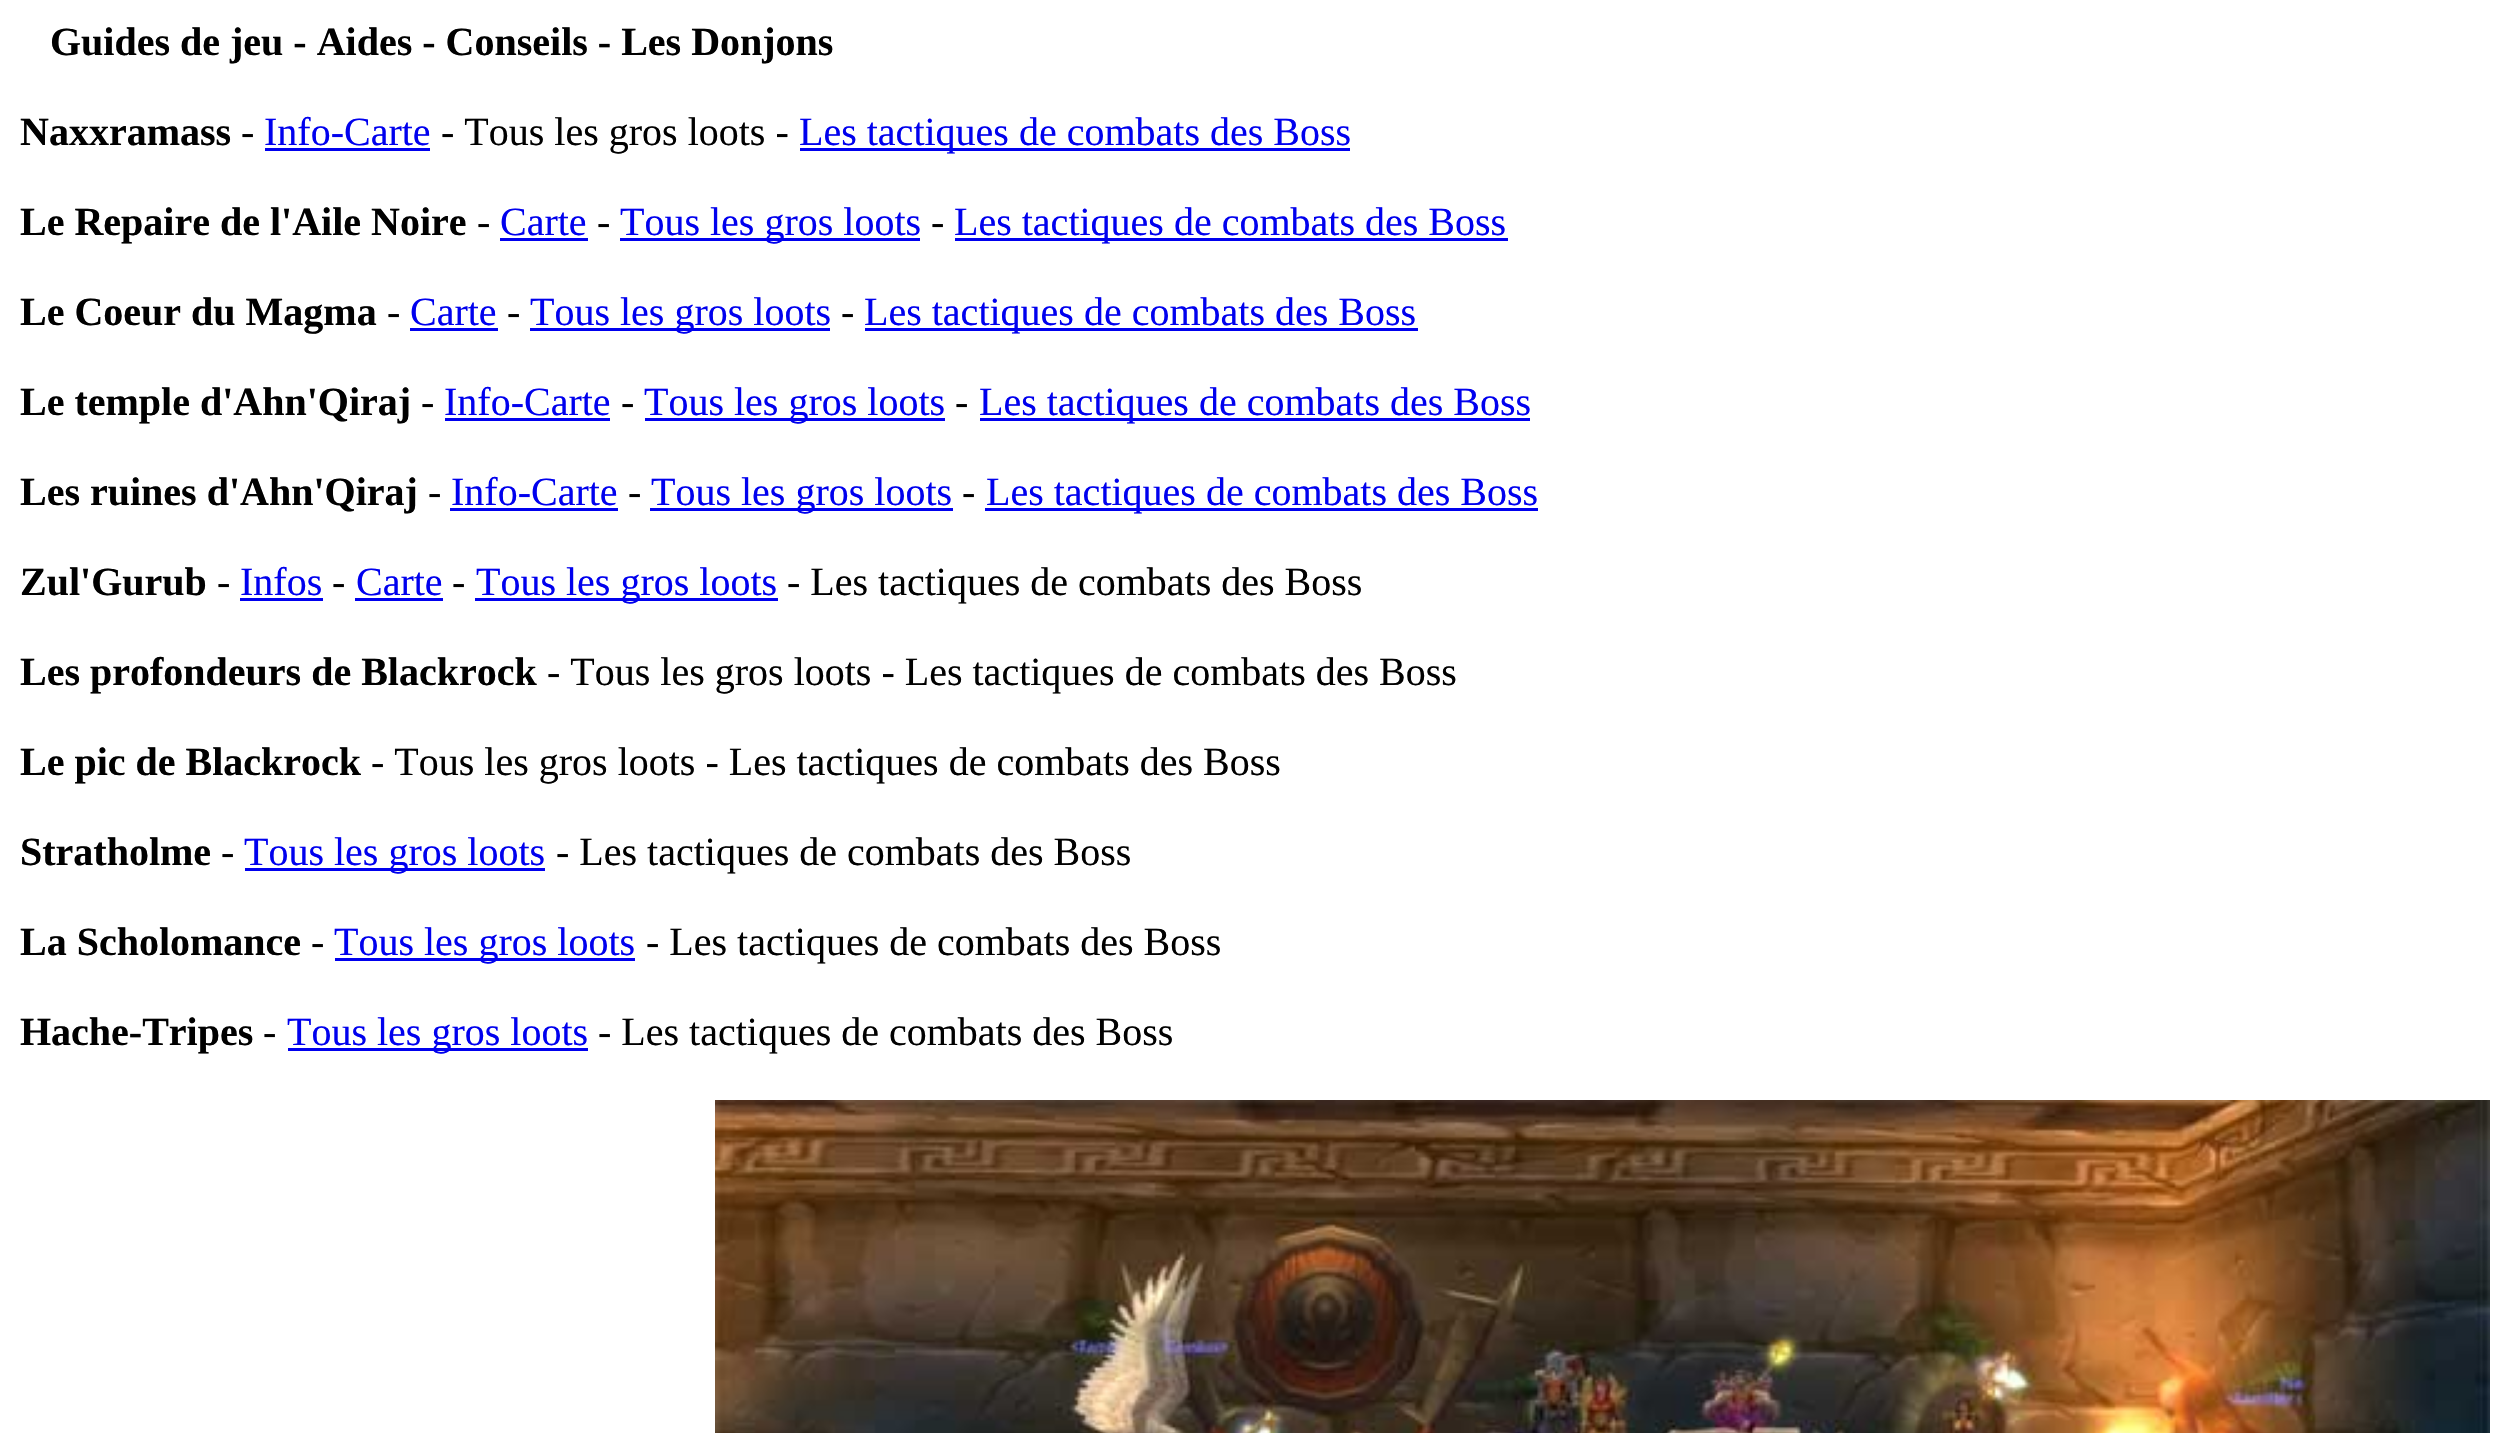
#include "include/core/SkBlurTypes.h"
#include "include/core/SkCanvas.h"
#include "include/core/SkData.h"
#include "include/core/SkFont.h"
#include "include/core/SkFontMgr.h"
#include "include/core/SkImage.h"
#include "include/core/SkMaskFilter.h"
#include "include/core/SkPaint.h"
#include "include/core/SkPathBuilder.h"
#include "include/core/SkTextBlob.h"
#include "include/effects/SkDashPathEffect.h"
#include "include/effects/SkGradientShader.h"
#include "include/utils/SkParsePath.h"

extern sk_sp<SkFontMgr> fontMgr;

void draw(SkCanvas* canvas) {
  SkPaint p;
  p.setAntiAlias(true);
  canvas->clear(SK_ColorWHITE);
  p.setColor(SkColorSetRGB(0, 0, 238));
  canvas->drawRect(SkRect::MakeLTRB(265, 148, 430, 151), p);
  canvas->drawRect(SkRect::MakeLTRB(800, 148, 1350, 151), p);
  canvas->drawRect(SkRect::MakeLTRB(500, 238, 588, 241), p);
  canvas->drawRect(SkRect::MakeLTRB(620, 238, 920, 241), p);
  canvas->drawRect(SkRect::MakeLTRB(955, 238, 1508, 241), p);
  canvas->drawRect(SkRect::MakeLTRB(410, 328, 498, 331), p);
  canvas->drawRect(SkRect::MakeLTRB(530, 328, 830, 331), p);
  canvas->drawRect(SkRect::MakeLTRB(865, 328, 1418, 331), p);
  canvas->drawRect(SkRect::MakeLTRB(445, 418, 610, 421), p);
  canvas->drawRect(SkRect::MakeLTRB(645, 418, 945, 421), p);
  canvas->drawRect(SkRect::MakeLTRB(980, 418, 1530, 421), p);
  canvas->drawRect(SkRect::MakeLTRB(450, 508, 618, 511), p);
  canvas->drawRect(SkRect::MakeLTRB(650, 508, 953, 511), p);
  canvas->drawRect(SkRect::MakeLTRB(985, 508, 1538, 511), p);
  canvas->drawRect(SkRect::MakeLTRB(240, 598, 323, 601), p);
  canvas->drawRect(SkRect::MakeLTRB(355, 598, 443, 601), p);
  canvas->drawRect(SkRect::MakeLTRB(475, 598, 778, 601), p);
  canvas->drawRect(SkRect::MakeLTRB(245, 868, 545, 871), p);
  canvas->drawRect(SkRect::MakeLTRB(335, 958, 635, 961), p);
  canvas->drawRect(SkRect::MakeLTRB(288, 1048, 588, 1051), p);
  canvas->drawImageRect(SkImages::DeferredFromEncodedData(SkData::MakeFromFileName("images/1.png")), SkRect::MakeLTRB(715, 1100, 2490, 1433), SkSamplingOptions());
  SkFont font1(fontMgr->matchFamilyStyle("Liberation Serif", SkFontStyle::Bold()), 40);
  font1.setSubpixel(true);
  p.setColor(SK_ColorBLACK);
  canvas->drawString("Guides de jeu - Aides - Conseils - Les Donjons", 50, 55, font1, p);
  canvas->drawString("Naxxramass", 20, 145, font1, p);
  SkFont font2(fontMgr->matchFamilyStyle("Liberation Serif", SkFontStyle::Normal()), 40);
  font2.setSubpixel(true);
  canvas->drawString("-", 241, 145, font2, p);
  p.setColor(SkColorSetRGB(0, 0, 238));
  canvas->drawString("Info-Carte", 264, 145, font2, p);
  p.setColor(SK_ColorBLACK);
  canvas->drawString("- Tous les gros loots -", 441, 145, font2, p);
  p.setColor(SkColorSetRGB(0, 0, 238));
  canvas->drawString("Les tactiques de combats des Boss", 799, 145, font2, p);
  p.setColor(SK_ColorBLACK);
  canvas->drawString("Le Repaire de l'Aile Noire", 20, 235, font1, p);
  canvas->drawString("-", 477, 235, font2, p);
  p.setColor(SkColorSetRGB(0, 0, 238));
  canvas->drawString("Carte", 500, 235, font2, p);
  p.setColor(SK_ColorBLACK);
  canvas->drawString("-", 597, 235, font2, p);
  p.setColor(SkColorSetRGB(0, 0, 238));
  canvas->drawString("Tous les gros loots", 620, 235, font2, p);
  p.setColor(SK_ColorBLACK);
  canvas->drawString("-", 931, 235, font2, p);
  p.setColor(SkColorSetRGB(0, 0, 238));
  canvas->drawString("Les tactiques de combats des Boss", 954, 235, font2, p);
  p.setColor(SK_ColorBLACK);
  canvas->drawString("Le Coeur du Magma", 20, 325, font1, p);
  canvas->drawString("-", 387, 325, font2, p);
  p.setColor(SkColorSetRGB(0, 0, 238));
  canvas->drawString("Carte", 410, 325, font2, p);
  p.setColor(SK_ColorBLACK);
  canvas->drawString("-", 507, 325, font2, p);
  p.setColor(SkColorSetRGB(0, 0, 238));
  canvas->drawString("Tous les gros loots", 530, 325, font2, p);
  p.setColor(SK_ColorBLACK);
  canvas->drawString("-", 841, 325, font2, p);
  p.setColor(SkColorSetRGB(0, 0, 238));
  canvas->drawString("Les tactiques de combats des Boss", 864, 325, font2, p);
  p.setColor(SK_ColorBLACK);
  canvas->drawString("Le temple d'Ahn'Qiraj", 20, 415, font1, p);
  canvas->drawString("-", 421, 415, font2, p);
  p.setColor(SkColorSetRGB(0, 0, 238));
  canvas->drawString("Info-Carte", 444, 415, font2, p);
  p.setColor(SK_ColorBLACK);
  canvas->drawString("-", 621, 415, font2, p);
  p.setColor(SkColorSetRGB(0, 0, 238));
  canvas->drawString("Tous les gros loots", 644, 415, font2, p);
  p.setColor(SK_ColorBLACK);
  canvas->drawString("-", 955, 415, font2, p);
  p.setColor(SkColorSetRGB(0, 0, 238));
  canvas->drawString("Les tactiques de combats des Boss", 979, 415, font2, p);
  p.setColor(SK_ColorBLACK);
  canvas->drawString("Les ruines d'Ahn'Qiraj", 20, 505, font1, p);
  canvas->drawString("-", 428, 505, font2, p);
  p.setColor(SkColorSetRGB(0, 0, 238));
  canvas->drawString("Info-Carte", 451, 505, font2, p);
  p.setColor(SK_ColorBLACK);
  canvas->drawString("-", 628, 505, font2, p);
  p.setColor(SkColorSetRGB(0, 0, 238));
  canvas->drawString("Tous les gros loots", 651, 505, font2, p);
  p.setColor(SK_ColorBLACK);
  canvas->drawString("-", 962, 505, font2, p);
  p.setColor(SkColorSetRGB(0, 0, 238));
  canvas->drawString("Les tactiques de combats des Boss", 986, 505, font2, p);
  p.setColor(SK_ColorBLACK);
  canvas->drawString("Zul'Gurub", 20, 595, font1, p);
  canvas->drawString("-", 217, 595, font2, p);
  p.setColor(SkColorSetRGB(0, 0, 238));
  canvas->drawString("Infos", 240, 595, font2, p);
  p.setColor(SK_ColorBLACK);
  canvas->drawString("-", 332, 595, font2, p);
  p.setColor(SkColorSetRGB(0, 0, 238));
  canvas->drawString("Carte", 356, 595, font2, p);
  p.setColor(SK_ColorBLACK);
  canvas->drawString("-", 452, 595, font2, p);
  p.setColor(SkColorSetRGB(0, 0, 238));
  canvas->drawString("Tous les gros loots", 476, 595, font2, p);
  p.setColor(SK_ColorBLACK);
  canvas->drawString("- Les tactiques de combats des Boss", 787, 595, font2, p);
  canvas->drawString("Les profondeurs de Blackrock", 20, 685, font1, p);
  canvas->drawString("- Tous les gros loots - Les tactiques de combats des Boss", 547, 685, font2, p);
  canvas->drawString("Le pic de Blackrock", 20, 775, font1, p);
  canvas->drawString("- Tous les gros loots - Les tactiques de combats des Boss", 371, 775, font2, p);
  canvas->drawString("Stratholme", 20, 865, font1, p);
  canvas->drawString("-", 221, 865, font2, p);
  p.setColor(SkColorSetRGB(0, 0, 238));
  canvas->drawString("Tous les gros loots", 244, 865, font2, p);
  p.setColor(SK_ColorBLACK);
  canvas->drawString("- Les tactiques de combats des Boss", 556, 865, font2, p);
  canvas->drawString("La Scholomance", 20, 955, font1, p);
  canvas->drawString("-", 311, 955, font2, p);
  p.setColor(SkColorSetRGB(0, 0, 238));
  canvas->drawString("Tous les gros loots", 334, 955, font2, p);
  p.setColor(SK_ColorBLACK);
  canvas->drawString("- Les tactiques de combats des Boss", 646, 955, font2, p);
  canvas->drawString("Hache-Tripes", 20, 1045, font1, p);
  canvas->drawString("-", 263, 1045, font2, p);
  p.setColor(SkColorSetRGB(0, 0, 238));
  canvas->drawString("Tous les gros loots", 287, 1045, font2, p);
  p.setColor(SK_ColorBLACK);
  canvas->drawString("- Les tactiques de combats des Boss", 598, 1045, font2, p);
}
